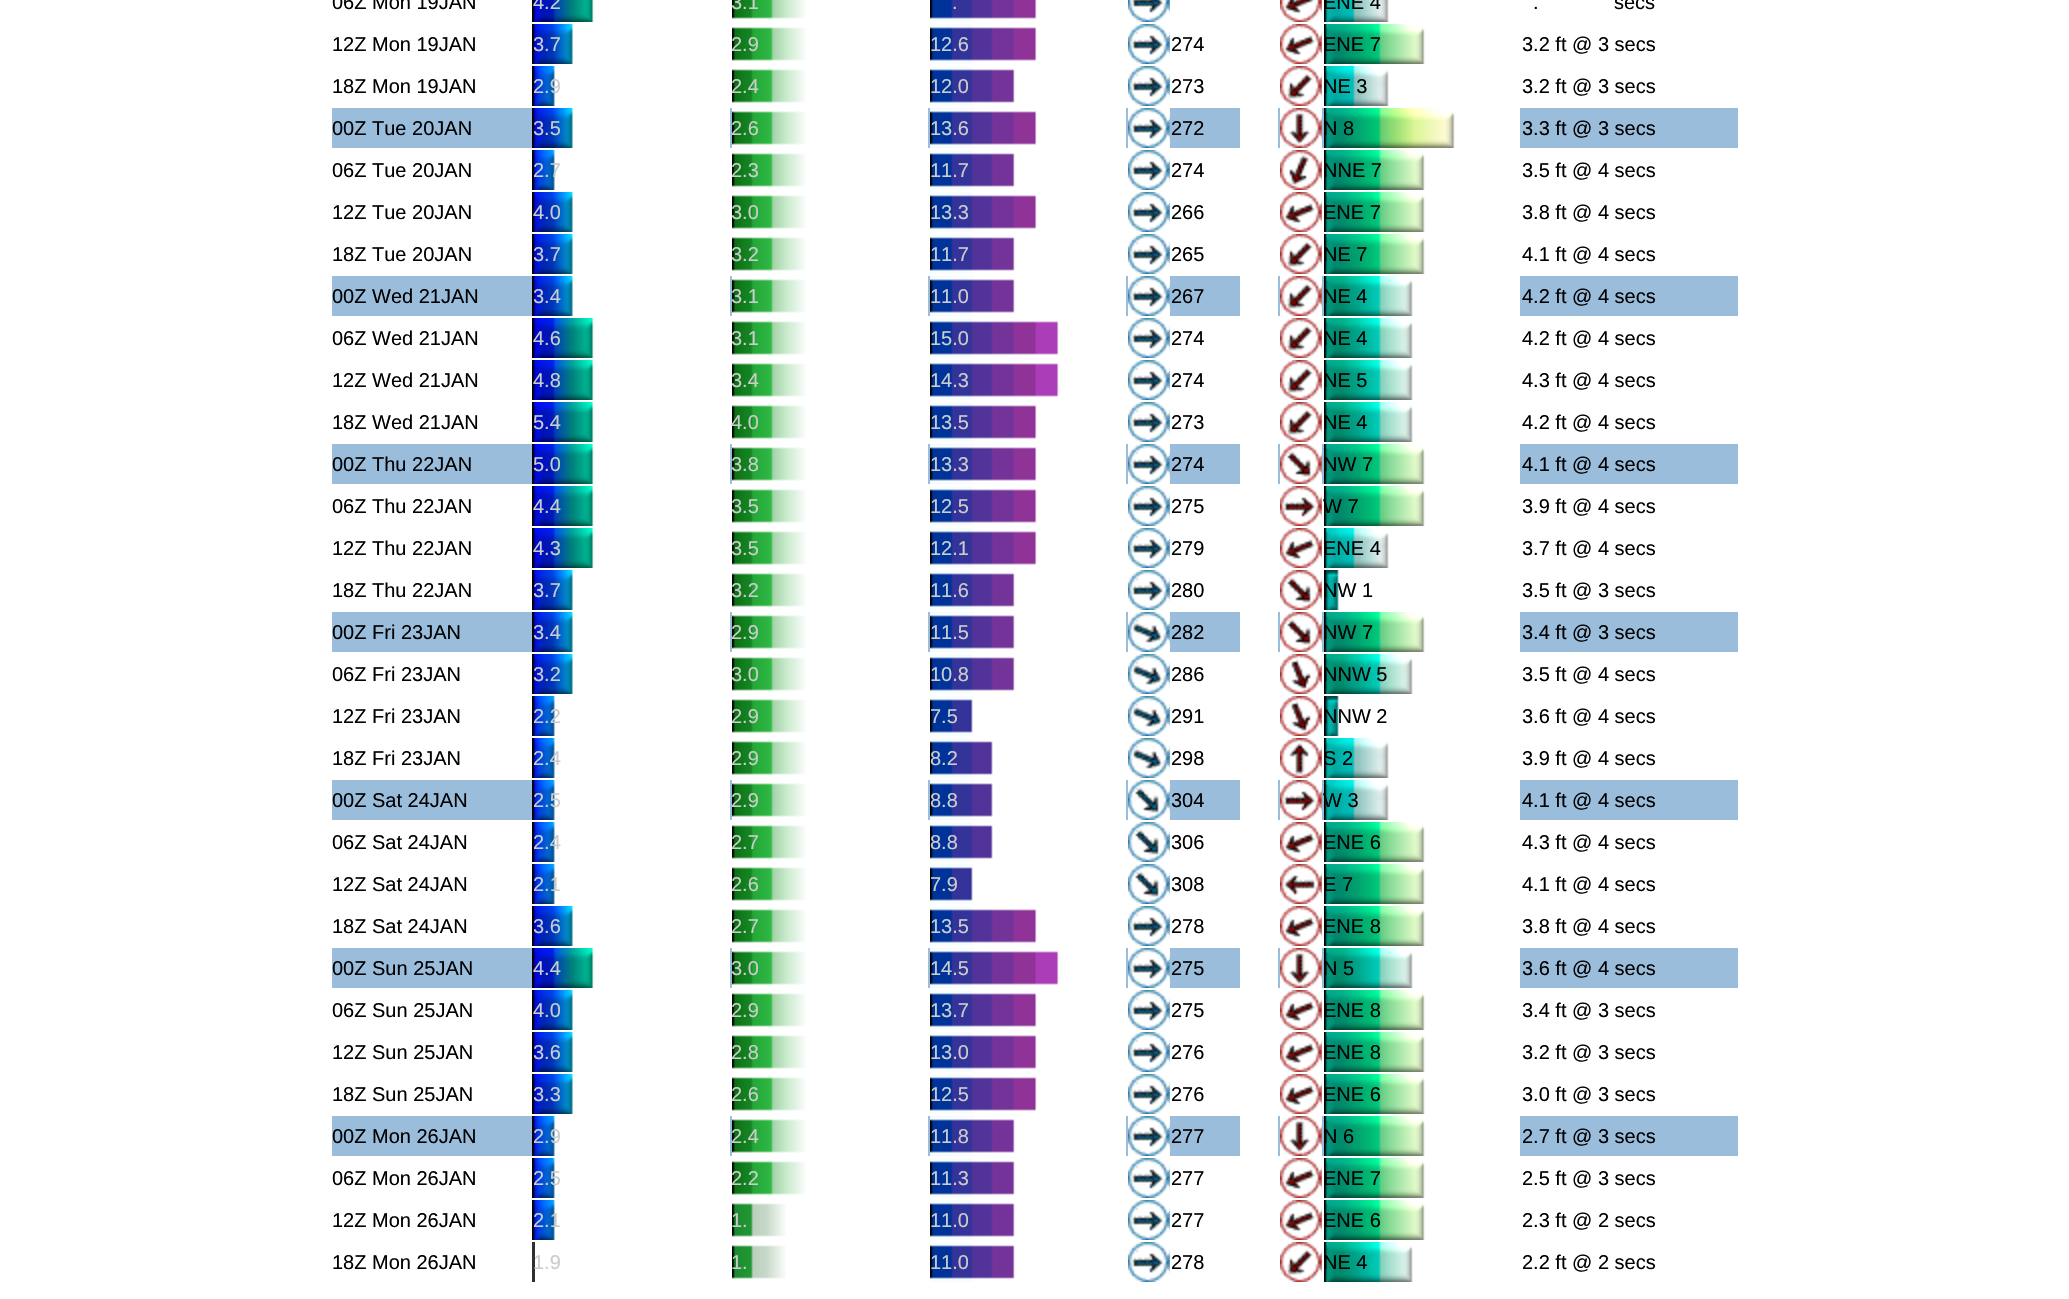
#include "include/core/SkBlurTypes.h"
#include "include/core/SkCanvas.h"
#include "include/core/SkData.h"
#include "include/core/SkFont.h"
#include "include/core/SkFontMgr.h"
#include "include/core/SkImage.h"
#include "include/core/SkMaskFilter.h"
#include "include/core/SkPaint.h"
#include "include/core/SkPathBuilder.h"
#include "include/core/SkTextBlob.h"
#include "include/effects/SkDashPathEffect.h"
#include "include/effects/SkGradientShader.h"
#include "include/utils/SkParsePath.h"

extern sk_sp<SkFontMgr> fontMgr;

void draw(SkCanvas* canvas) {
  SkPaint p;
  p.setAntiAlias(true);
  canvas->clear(SK_ColorWHITE);
  canvas->drawImageRect(SkImages::DeferredFromEncodedData(SkData::MakeFromFileName("images/1.png")), SkRect::MakeLTRB(532, 0, 594, 22), SkSamplingOptions());
  canvas->drawImageRect(SkImages::DeferredFromEncodedData(SkData::MakeFromFileName("images/2.png")), SkRect::MakeLTRB(732, 0, 806, 19), SkSamplingOptions());
  canvas->drawImageRect(SkImages::DeferredFromEncodedData(SkData::MakeFromFileName("images/3.png")), SkRect::MakeLTRB(930, 0, 1037, 22), SkSamplingOptions());
  canvas->drawImageRect(SkImages::DeferredFromEncodedData(SkData::MakeFromFileName("images/4.png")), SkRect::MakeLTRB(1128, 0, 1170, 22), SkSamplingOptions());
  canvas->drawImageRect(SkImages::DeferredFromEncodedData(SkData::MakeFromFileName("images/5.png")), SkRect::MakeLTRB(1280, 0, 1322, 22), SkSamplingOptions());
  canvas->drawImageRect(SkImages::DeferredFromEncodedData(SkData::MakeFromFileName("images/6.png")), SkRect::MakeLTRB(1324, 0, 1389, 22), SkSamplingOptions());
  canvas->drawImageRect(SkImages::DeferredFromEncodedData(SkData::MakeFromFileName("images/7.png")), SkRect::MakeLTRB(532, 24, 573, 64), SkSamplingOptions());
  canvas->drawImageRect(SkImages::DeferredFromEncodedData(SkData::MakeFromFileName("images/8.png")), SkRect::MakeLTRB(732, 27, 806, 61), SkSamplingOptions());
  canvas->drawImageRect(SkImages::DeferredFromEncodedData(SkData::MakeFromFileName("images/9.png")), SkRect::MakeLTRB(930, 24, 1037, 64), SkSamplingOptions());
  canvas->drawImageRect(SkImages::DeferredFromEncodedData(SkData::MakeFromFileName("images/10.png")), SkRect::MakeLTRB(1128, 24, 1170, 64), SkSamplingOptions());
  canvas->drawImageRect(SkImages::DeferredFromEncodedData(SkData::MakeFromFileName("images/11.png")), SkRect::MakeLTRB(1280, 24, 1322, 64), SkSamplingOptions());
  canvas->drawImageRect(SkImages::DeferredFromEncodedData(SkData::MakeFromFileName("images/12.png")), SkRect::MakeLTRB(1324, 24, 1425, 64), SkSamplingOptions());
  canvas->drawImageRect(SkImages::DeferredFromEncodedData(SkData::MakeFromFileName("images/13.png")), SkRect::MakeLTRB(532, 66, 555, 106), SkSamplingOptions());
  canvas->drawImageRect(SkImages::DeferredFromEncodedData(SkData::MakeFromFileName("images/8.png")), SkRect::MakeLTRB(732, 69, 806, 103), SkSamplingOptions());
  canvas->drawImageRect(SkImages::DeferredFromEncodedData(SkData::MakeFromFileName("images/14.png")), SkRect::MakeLTRB(930, 66, 1015, 106), SkSamplingOptions());
  canvas->drawImageRect(SkImages::DeferredFromEncodedData(SkData::MakeFromFileName("images/10.png")), SkRect::MakeLTRB(1128, 66, 1170, 106), SkSamplingOptions());
  canvas->drawImageRect(SkImages::DeferredFromEncodedData(SkData::MakeFromFileName("images/15.png")), SkRect::MakeLTRB(1280, 66, 1322, 106), SkSamplingOptions());
  canvas->drawImageRect(SkImages::DeferredFromEncodedData(SkData::MakeFromFileName("images/16.png")), SkRect::MakeLTRB(1324, 66, 1389, 106), SkSamplingOptions());
  p.setColor(SkColorSetRGB(155, 189, 220));
  canvas->drawRect(SkRect::MakeLTRB(332, 108, 1738, 148), p);
  canvas->drawImageRect(SkImages::DeferredFromEncodedData(SkData::MakeFromFileName("images/17.png")), SkRect::MakeLTRB(532, 108, 730, 148), SkSamplingOptions());
  canvas->drawImageRect(SkImages::DeferredFromEncodedData(SkData::MakeFromFileName("images/18.png")), SkRect::MakeLTRB(732, 108, 928, 148), SkSamplingOptions());
  canvas->drawImageRect(SkImages::DeferredFromEncodedData(SkData::MakeFromFileName("images/19.png")), SkRect::MakeLTRB(930, 108, 1126, 148), SkSamplingOptions());
  canvas->drawImageRect(SkImages::DeferredFromEncodedData(SkData::MakeFromFileName("images/10.png")), SkRect::MakeLTRB(1128, 108, 1170, 148), SkSamplingOptions());
  p.setColor(SK_ColorWHITE);
  canvas->drawRect(SkRect::MakeLTRB(1240, 108, 1278, 148), p);
  canvas->drawImageRect(SkImages::DeferredFromEncodedData(SkData::MakeFromFileName("images/20.png")), SkRect::MakeLTRB(1280, 108, 1322, 148), SkSamplingOptions());
  canvas->drawImageRect(SkImages::DeferredFromEncodedData(SkData::MakeFromFileName("images/21.png")), SkRect::MakeLTRB(1324, 108, 1520, 148), SkSamplingOptions());
  canvas->drawImageRect(SkImages::DeferredFromEncodedData(SkData::MakeFromFileName("images/13.png")), SkRect::MakeLTRB(532, 150, 555, 190), SkSamplingOptions());
  canvas->drawImageRect(SkImages::DeferredFromEncodedData(SkData::MakeFromFileName("images/8.png")), SkRect::MakeLTRB(732, 153, 806, 187), SkSamplingOptions());
  canvas->drawImageRect(SkImages::DeferredFromEncodedData(SkData::MakeFromFileName("images/14.png")), SkRect::MakeLTRB(930, 150, 1015, 190), SkSamplingOptions());
  canvas->drawImageRect(SkImages::DeferredFromEncodedData(SkData::MakeFromFileName("images/10.png")), SkRect::MakeLTRB(1128, 150, 1170, 190), SkSamplingOptions());
  canvas->drawImageRect(SkImages::DeferredFromEncodedData(SkData::MakeFromFileName("images/22.png")), SkRect::MakeLTRB(1280, 150, 1322, 190), SkSamplingOptions());
  canvas->drawImageRect(SkImages::DeferredFromEncodedData(SkData::MakeFromFileName("images/12.png")), SkRect::MakeLTRB(1324, 150, 1425, 190), SkSamplingOptions());
  canvas->drawImageRect(SkImages::DeferredFromEncodedData(SkData::MakeFromFileName("images/7.png")), SkRect::MakeLTRB(532, 192, 573, 232), SkSamplingOptions());
  canvas->drawImageRect(SkImages::DeferredFromEncodedData(SkData::MakeFromFileName("images/8.png")), SkRect::MakeLTRB(732, 195, 806, 229), SkSamplingOptions());
  canvas->drawImageRect(SkImages::DeferredFromEncodedData(SkData::MakeFromFileName("images/9.png")), SkRect::MakeLTRB(930, 192, 1037, 232), SkSamplingOptions());
  canvas->drawImageRect(SkImages::DeferredFromEncodedData(SkData::MakeFromFileName("images/10.png")), SkRect::MakeLTRB(1128, 192, 1170, 232), SkSamplingOptions());
  canvas->drawImageRect(SkImages::DeferredFromEncodedData(SkData::MakeFromFileName("images/11.png")), SkRect::MakeLTRB(1280, 192, 1322, 232), SkSamplingOptions());
  canvas->drawImageRect(SkImages::DeferredFromEncodedData(SkData::MakeFromFileName("images/12.png")), SkRect::MakeLTRB(1324, 192, 1425, 232), SkSamplingOptions());
  canvas->drawImageRect(SkImages::DeferredFromEncodedData(SkData::MakeFromFileName("images/7.png")), SkRect::MakeLTRB(532, 234, 573, 274), SkSamplingOptions());
  canvas->drawImageRect(SkImages::DeferredFromEncodedData(SkData::MakeFromFileName("images/8.png")), SkRect::MakeLTRB(732, 237, 806, 271), SkSamplingOptions());
  canvas->drawImageRect(SkImages::DeferredFromEncodedData(SkData::MakeFromFileName("images/14.png")), SkRect::MakeLTRB(930, 234, 1015, 274), SkSamplingOptions());
  canvas->drawImageRect(SkImages::DeferredFromEncodedData(SkData::MakeFromFileName("images/10.png")), SkRect::MakeLTRB(1128, 234, 1170, 274), SkSamplingOptions());
  canvas->drawImageRect(SkImages::DeferredFromEncodedData(SkData::MakeFromFileName("images/15.png")), SkRect::MakeLTRB(1280, 234, 1322, 274), SkSamplingOptions());
  canvas->drawImageRect(SkImages::DeferredFromEncodedData(SkData::MakeFromFileName("images/12.png")), SkRect::MakeLTRB(1324, 234, 1425, 274), SkSamplingOptions());
  p.setColor(SkColorSetRGB(155, 189, 220));
  canvas->drawRect(SkRect::MakeLTRB(332, 276, 1738, 316), p);
  canvas->drawImageRect(SkImages::DeferredFromEncodedData(SkData::MakeFromFileName("images/17.png")), SkRect::MakeLTRB(532, 276, 730, 316), SkSamplingOptions());
  canvas->drawImageRect(SkImages::DeferredFromEncodedData(SkData::MakeFromFileName("images/18.png")), SkRect::MakeLTRB(732, 276, 928, 316), SkSamplingOptions());
  canvas->drawImageRect(SkImages::DeferredFromEncodedData(SkData::MakeFromFileName("images/23.png")), SkRect::MakeLTRB(930, 276, 1126, 316), SkSamplingOptions());
  canvas->drawImageRect(SkImages::DeferredFromEncodedData(SkData::MakeFromFileName("images/10.png")), SkRect::MakeLTRB(1128, 276, 1170, 316), SkSamplingOptions());
  p.setColor(SK_ColorWHITE);
  canvas->drawRect(SkRect::MakeLTRB(1240, 276, 1278, 316), p);
  canvas->drawImageRect(SkImages::DeferredFromEncodedData(SkData::MakeFromFileName("images/15.png")), SkRect::MakeLTRB(1280, 276, 1322, 316), SkSamplingOptions());
  canvas->drawImageRect(SkImages::DeferredFromEncodedData(SkData::MakeFromFileName("images/24.png")), SkRect::MakeLTRB(1324, 276, 1520, 316), SkSamplingOptions());
  canvas->drawImageRect(SkImages::DeferredFromEncodedData(SkData::MakeFromFileName("images/25.png")), SkRect::MakeLTRB(532, 318, 594, 358), SkSamplingOptions());
  canvas->drawImageRect(SkImages::DeferredFromEncodedData(SkData::MakeFromFileName("images/8.png")), SkRect::MakeLTRB(732, 321, 806, 355), SkSamplingOptions());
  canvas->drawImageRect(SkImages::DeferredFromEncodedData(SkData::MakeFromFileName("images/26.png")), SkRect::MakeLTRB(930, 318, 1059, 358), SkSamplingOptions());
  canvas->drawImageRect(SkImages::DeferredFromEncodedData(SkData::MakeFromFileName("images/10.png")), SkRect::MakeLTRB(1128, 318, 1170, 358), SkSamplingOptions());
  canvas->drawImageRect(SkImages::DeferredFromEncodedData(SkData::MakeFromFileName("images/15.png")), SkRect::MakeLTRB(1280, 318, 1322, 358), SkSamplingOptions());
  canvas->drawImageRect(SkImages::DeferredFromEncodedData(SkData::MakeFromFileName("images/27.png")), SkRect::MakeLTRB(1324, 318, 1413, 358), SkSamplingOptions());
  canvas->drawImageRect(SkImages::DeferredFromEncodedData(SkData::MakeFromFileName("images/25.png")), SkRect::MakeLTRB(532, 360, 594, 400), SkSamplingOptions());
  canvas->drawImageRect(SkImages::DeferredFromEncodedData(SkData::MakeFromFileName("images/8.png")), SkRect::MakeLTRB(732, 363, 806, 397), SkSamplingOptions());
  canvas->drawImageRect(SkImages::DeferredFromEncodedData(SkData::MakeFromFileName("images/26.png")), SkRect::MakeLTRB(930, 360, 1059, 400), SkSamplingOptions());
  canvas->drawImageRect(SkImages::DeferredFromEncodedData(SkData::MakeFromFileName("images/10.png")), SkRect::MakeLTRB(1128, 360, 1170, 400), SkSamplingOptions());
  canvas->drawImageRect(SkImages::DeferredFromEncodedData(SkData::MakeFromFileName("images/15.png")), SkRect::MakeLTRB(1280, 360, 1322, 400), SkSamplingOptions());
  canvas->drawImageRect(SkImages::DeferredFromEncodedData(SkData::MakeFromFileName("images/27.png")), SkRect::MakeLTRB(1324, 360, 1413, 400), SkSamplingOptions());
  canvas->drawImageRect(SkImages::DeferredFromEncodedData(SkData::MakeFromFileName("images/25.png")), SkRect::MakeLTRB(532, 402, 594, 442), SkSamplingOptions());
  canvas->drawImageRect(SkImages::DeferredFromEncodedData(SkData::MakeFromFileName("images/8.png")), SkRect::MakeLTRB(732, 405, 806, 439), SkSamplingOptions());
  canvas->drawImageRect(SkImages::DeferredFromEncodedData(SkData::MakeFromFileName("images/9.png")), SkRect::MakeLTRB(930, 402, 1037, 442), SkSamplingOptions());
  canvas->drawImageRect(SkImages::DeferredFromEncodedData(SkData::MakeFromFileName("images/10.png")), SkRect::MakeLTRB(1128, 402, 1170, 442), SkSamplingOptions());
  canvas->drawImageRect(SkImages::DeferredFromEncodedData(SkData::MakeFromFileName("images/15.png")), SkRect::MakeLTRB(1280, 402, 1322, 442), SkSamplingOptions());
  canvas->drawImageRect(SkImages::DeferredFromEncodedData(SkData::MakeFromFileName("images/27.png")), SkRect::MakeLTRB(1324, 402, 1413, 442), SkSamplingOptions());
  p.setColor(SkColorSetRGB(155, 189, 220));
  canvas->drawRect(SkRect::MakeLTRB(332, 444, 1738, 484), p);
  canvas->drawImageRect(SkImages::DeferredFromEncodedData(SkData::MakeFromFileName("images/28.png")), SkRect::MakeLTRB(532, 444, 730, 484), SkSamplingOptions());
  canvas->drawImageRect(SkImages::DeferredFromEncodedData(SkData::MakeFromFileName("images/18.png")), SkRect::MakeLTRB(732, 444, 928, 484), SkSamplingOptions());
  canvas->drawImageRect(SkImages::DeferredFromEncodedData(SkData::MakeFromFileName("images/19.png")), SkRect::MakeLTRB(930, 444, 1126, 484), SkSamplingOptions());
  canvas->drawImageRect(SkImages::DeferredFromEncodedData(SkData::MakeFromFileName("images/10.png")), SkRect::MakeLTRB(1128, 444, 1170, 484), SkSamplingOptions());
  p.setColor(SK_ColorWHITE);
  canvas->drawRect(SkRect::MakeLTRB(1240, 444, 1278, 484), p);
  canvas->drawImageRect(SkImages::DeferredFromEncodedData(SkData::MakeFromFileName("images/29.png")), SkRect::MakeLTRB(1280, 444, 1322, 484), SkSamplingOptions());
  canvas->drawImageRect(SkImages::DeferredFromEncodedData(SkData::MakeFromFileName("images/30.png")), SkRect::MakeLTRB(1324, 444, 1520, 484), SkSamplingOptions());
  canvas->drawImageRect(SkImages::DeferredFromEncodedData(SkData::MakeFromFileName("images/25.png")), SkRect::MakeLTRB(532, 486, 594, 526), SkSamplingOptions());
  canvas->drawImageRect(SkImages::DeferredFromEncodedData(SkData::MakeFromFileName("images/8.png")), SkRect::MakeLTRB(732, 489, 806, 523), SkSamplingOptions());
  canvas->drawImageRect(SkImages::DeferredFromEncodedData(SkData::MakeFromFileName("images/9.png")), SkRect::MakeLTRB(930, 486, 1037, 526), SkSamplingOptions());
  canvas->drawImageRect(SkImages::DeferredFromEncodedData(SkData::MakeFromFileName("images/10.png")), SkRect::MakeLTRB(1128, 486, 1170, 526), SkSamplingOptions());
  canvas->drawImageRect(SkImages::DeferredFromEncodedData(SkData::MakeFromFileName("images/31.png")), SkRect::MakeLTRB(1280, 486, 1322, 526), SkSamplingOptions());
  canvas->drawImageRect(SkImages::DeferredFromEncodedData(SkData::MakeFromFileName("images/12.png")), SkRect::MakeLTRB(1324, 486, 1425, 526), SkSamplingOptions());
  canvas->drawImageRect(SkImages::DeferredFromEncodedData(SkData::MakeFromFileName("images/25.png")), SkRect::MakeLTRB(532, 528, 594, 568), SkSamplingOptions());
  canvas->drawImageRect(SkImages::DeferredFromEncodedData(SkData::MakeFromFileName("images/8.png")), SkRect::MakeLTRB(732, 531, 806, 565), SkSamplingOptions());
  canvas->drawImageRect(SkImages::DeferredFromEncodedData(SkData::MakeFromFileName("images/9.png")), SkRect::MakeLTRB(930, 528, 1037, 568), SkSamplingOptions());
  canvas->drawImageRect(SkImages::DeferredFromEncodedData(SkData::MakeFromFileName("images/10.png")), SkRect::MakeLTRB(1128, 528, 1170, 568), SkSamplingOptions());
  canvas->drawImageRect(SkImages::DeferredFromEncodedData(SkData::MakeFromFileName("images/11.png")), SkRect::MakeLTRB(1280, 528, 1322, 568), SkSamplingOptions());
  canvas->drawImageRect(SkImages::DeferredFromEncodedData(SkData::MakeFromFileName("images/16.png")), SkRect::MakeLTRB(1324, 528, 1389, 568), SkSamplingOptions());
  canvas->drawImageRect(SkImages::DeferredFromEncodedData(SkData::MakeFromFileName("images/7.png")), SkRect::MakeLTRB(532, 570, 573, 610), SkSamplingOptions());
  canvas->drawImageRect(SkImages::DeferredFromEncodedData(SkData::MakeFromFileName("images/8.png")), SkRect::MakeLTRB(732, 573, 806, 607), SkSamplingOptions());
  canvas->drawImageRect(SkImages::DeferredFromEncodedData(SkData::MakeFromFileName("images/14.png")), SkRect::MakeLTRB(930, 570, 1015, 610), SkSamplingOptions());
  canvas->drawImageRect(SkImages::DeferredFromEncodedData(SkData::MakeFromFileName("images/10.png")), SkRect::MakeLTRB(1128, 570, 1170, 610), SkSamplingOptions());
  canvas->drawImageRect(SkImages::DeferredFromEncodedData(SkData::MakeFromFileName("images/29.png")), SkRect::MakeLTRB(1280, 570, 1322, 610), SkSamplingOptions());
  canvas->drawImageRect(SkImages::DeferredFromEncodedData(SkData::MakeFromFileName("images/32.png")), SkRect::MakeLTRB(1324, 570, 1339, 610), SkSamplingOptions());
  p.setColor(SkColorSetRGB(155, 189, 220));
  canvas->drawRect(SkRect::MakeLTRB(332, 612, 1738, 652), p);
  canvas->drawImageRect(SkImages::DeferredFromEncodedData(SkData::MakeFromFileName("images/17.png")), SkRect::MakeLTRB(532, 612, 730, 652), SkSamplingOptions());
  canvas->drawImageRect(SkImages::DeferredFromEncodedData(SkData::MakeFromFileName("images/18.png")), SkRect::MakeLTRB(732, 612, 928, 652), SkSamplingOptions());
  canvas->drawImageRect(SkImages::DeferredFromEncodedData(SkData::MakeFromFileName("images/23.png")), SkRect::MakeLTRB(930, 612, 1126, 652), SkSamplingOptions());
  canvas->drawImageRect(SkImages::DeferredFromEncodedData(SkData::MakeFromFileName("images/33.png")), SkRect::MakeLTRB(1128, 612, 1170, 652), SkSamplingOptions());
  p.setColor(SK_ColorWHITE);
  canvas->drawRect(SkRect::MakeLTRB(1240, 612, 1278, 652), p);
  canvas->drawImageRect(SkImages::DeferredFromEncodedData(SkData::MakeFromFileName("images/29.png")), SkRect::MakeLTRB(1280, 612, 1322, 652), SkSamplingOptions());
  canvas->drawImageRect(SkImages::DeferredFromEncodedData(SkData::MakeFromFileName("images/30.png")), SkRect::MakeLTRB(1324, 612, 1520, 652), SkSamplingOptions());
  canvas->drawImageRect(SkImages::DeferredFromEncodedData(SkData::MakeFromFileName("images/7.png")), SkRect::MakeLTRB(532, 654, 573, 694), SkSamplingOptions());
  canvas->drawImageRect(SkImages::DeferredFromEncodedData(SkData::MakeFromFileName("images/8.png")), SkRect::MakeLTRB(732, 657, 806, 691), SkSamplingOptions());
  canvas->drawImageRect(SkImages::DeferredFromEncodedData(SkData::MakeFromFileName("images/14.png")), SkRect::MakeLTRB(930, 654, 1015, 694), SkSamplingOptions());
  canvas->drawImageRect(SkImages::DeferredFromEncodedData(SkData::MakeFromFileName("images/33.png")), SkRect::MakeLTRB(1128, 654, 1170, 694), SkSamplingOptions());
  canvas->drawImageRect(SkImages::DeferredFromEncodedData(SkData::MakeFromFileName("images/34.png")), SkRect::MakeLTRB(1280, 654, 1322, 694), SkSamplingOptions());
  canvas->drawImageRect(SkImages::DeferredFromEncodedData(SkData::MakeFromFileName("images/27.png")), SkRect::MakeLTRB(1324, 654, 1413, 694), SkSamplingOptions());
  canvas->drawImageRect(SkImages::DeferredFromEncodedData(SkData::MakeFromFileName("images/13.png")), SkRect::MakeLTRB(532, 696, 555, 736), SkSamplingOptions());
  canvas->drawImageRect(SkImages::DeferredFromEncodedData(SkData::MakeFromFileName("images/8.png")), SkRect::MakeLTRB(732, 699, 806, 733), SkSamplingOptions());
  canvas->drawImageRect(SkImages::DeferredFromEncodedData(SkData::MakeFromFileName("images/35.png")), SkRect::MakeLTRB(930, 696, 974, 736), SkSamplingOptions());
  canvas->drawImageRect(SkImages::DeferredFromEncodedData(SkData::MakeFromFileName("images/33.png")), SkRect::MakeLTRB(1128, 696, 1170, 736), SkSamplingOptions());
  canvas->drawImageRect(SkImages::DeferredFromEncodedData(SkData::MakeFromFileName("images/34.png")), SkRect::MakeLTRB(1280, 696, 1322, 736), SkSamplingOptions());
  canvas->drawImageRect(SkImages::DeferredFromEncodedData(SkData::MakeFromFileName("images/32.png")), SkRect::MakeLTRB(1324, 696, 1339, 736), SkSamplingOptions());
  canvas->drawImageRect(SkImages::DeferredFromEncodedData(SkData::MakeFromFileName("images/13.png")), SkRect::MakeLTRB(532, 738, 555, 778), SkSamplingOptions());
  canvas->drawImageRect(SkImages::DeferredFromEncodedData(SkData::MakeFromFileName("images/8.png")), SkRect::MakeLTRB(732, 741, 806, 775), SkSamplingOptions());
  canvas->drawImageRect(SkImages::DeferredFromEncodedData(SkData::MakeFromFileName("images/36.png")), SkRect::MakeLTRB(930, 738, 993, 778), SkSamplingOptions());
  canvas->drawImageRect(SkImages::DeferredFromEncodedData(SkData::MakeFromFileName("images/33.png")), SkRect::MakeLTRB(1128, 738, 1170, 778), SkSamplingOptions());
  canvas->drawImageRect(SkImages::DeferredFromEncodedData(SkData::MakeFromFileName("images/37.png")), SkRect::MakeLTRB(1280, 738, 1322, 778), SkSamplingOptions());
  canvas->drawImageRect(SkImages::DeferredFromEncodedData(SkData::MakeFromFileName("images/16.png")), SkRect::MakeLTRB(1324, 738, 1389, 778), SkSamplingOptions());
  p.setColor(SkColorSetRGB(155, 189, 220));
  canvas->drawRect(SkRect::MakeLTRB(332, 780, 1738, 820), p);
  canvas->drawImageRect(SkImages::DeferredFromEncodedData(SkData::MakeFromFileName("images/38.png")), SkRect::MakeLTRB(532, 780, 730, 820), SkSamplingOptions());
  canvas->drawImageRect(SkImages::DeferredFromEncodedData(SkData::MakeFromFileName("images/18.png")), SkRect::MakeLTRB(732, 780, 928, 820), SkSamplingOptions());
  canvas->drawImageRect(SkImages::DeferredFromEncodedData(SkData::MakeFromFileName("images/39.png")), SkRect::MakeLTRB(930, 780, 1126, 820), SkSamplingOptions());
  canvas->drawImageRect(SkImages::DeferredFromEncodedData(SkData::MakeFromFileName("images/40.png")), SkRect::MakeLTRB(1128, 780, 1170, 820), SkSamplingOptions());
  p.setColor(SK_ColorWHITE);
  canvas->drawRect(SkRect::MakeLTRB(1240, 780, 1278, 820), p);
  canvas->drawImageRect(SkImages::DeferredFromEncodedData(SkData::MakeFromFileName("images/31.png")), SkRect::MakeLTRB(1280, 780, 1322, 820), SkSamplingOptions());
  canvas->drawImageRect(SkImages::DeferredFromEncodedData(SkData::MakeFromFileName("images/41.png")), SkRect::MakeLTRB(1324, 780, 1520, 820), SkSamplingOptions());
  canvas->drawImageRect(SkImages::DeferredFromEncodedData(SkData::MakeFromFileName("images/13.png")), SkRect::MakeLTRB(532, 822, 555, 862), SkSamplingOptions());
  canvas->drawImageRect(SkImages::DeferredFromEncodedData(SkData::MakeFromFileName("images/8.png")), SkRect::MakeLTRB(732, 825, 806, 859), SkSamplingOptions());
  canvas->drawImageRect(SkImages::DeferredFromEncodedData(SkData::MakeFromFileName("images/36.png")), SkRect::MakeLTRB(930, 822, 993, 862), SkSamplingOptions());
  canvas->drawImageRect(SkImages::DeferredFromEncodedData(SkData::MakeFromFileName("images/40.png")), SkRect::MakeLTRB(1128, 822, 1170, 862), SkSamplingOptions());
  canvas->drawImageRect(SkImages::DeferredFromEncodedData(SkData::MakeFromFileName("images/11.png")), SkRect::MakeLTRB(1280, 822, 1322, 862), SkSamplingOptions());
  canvas->drawImageRect(SkImages::DeferredFromEncodedData(SkData::MakeFromFileName("images/12.png")), SkRect::MakeLTRB(1324, 822, 1425, 862), SkSamplingOptions());
  canvas->drawImageRect(SkImages::DeferredFromEncodedData(SkData::MakeFromFileName("images/13.png")), SkRect::MakeLTRB(532, 864, 555, 904), SkSamplingOptions());
  canvas->drawImageRect(SkImages::DeferredFromEncodedData(SkData::MakeFromFileName("images/8.png")), SkRect::MakeLTRB(732, 867, 806, 901), SkSamplingOptions());
  canvas->drawImageRect(SkImages::DeferredFromEncodedData(SkData::MakeFromFileName("images/35.png")), SkRect::MakeLTRB(930, 864, 974, 904), SkSamplingOptions());
  canvas->drawImageRect(SkImages::DeferredFromEncodedData(SkData::MakeFromFileName("images/40.png")), SkRect::MakeLTRB(1128, 864, 1170, 904), SkSamplingOptions());
  canvas->drawImageRect(SkImages::DeferredFromEncodedData(SkData::MakeFromFileName("images/42.png")), SkRect::MakeLTRB(1280, 864, 1322, 904), SkSamplingOptions());
  canvas->drawImageRect(SkImages::DeferredFromEncodedData(SkData::MakeFromFileName("images/12.png")), SkRect::MakeLTRB(1324, 864, 1425, 904), SkSamplingOptions());
  canvas->drawImageRect(SkImages::DeferredFromEncodedData(SkData::MakeFromFileName("images/7.png")), SkRect::MakeLTRB(532, 906, 573, 946), SkSamplingOptions());
  canvas->drawImageRect(SkImages::DeferredFromEncodedData(SkData::MakeFromFileName("images/8.png")), SkRect::MakeLTRB(732, 909, 806, 943), SkSamplingOptions());
  canvas->drawImageRect(SkImages::DeferredFromEncodedData(SkData::MakeFromFileName("images/9.png")), SkRect::MakeLTRB(930, 906, 1037, 946), SkSamplingOptions());
  canvas->drawImageRect(SkImages::DeferredFromEncodedData(SkData::MakeFromFileName("images/10.png")), SkRect::MakeLTRB(1128, 906, 1170, 946), SkSamplingOptions());
  canvas->drawImageRect(SkImages::DeferredFromEncodedData(SkData::MakeFromFileName("images/11.png")), SkRect::MakeLTRB(1280, 906, 1322, 946), SkSamplingOptions());
  canvas->drawImageRect(SkImages::DeferredFromEncodedData(SkData::MakeFromFileName("images/12.png")), SkRect::MakeLTRB(1324, 906, 1425, 946), SkSamplingOptions());
  p.setColor(SkColorSetRGB(155, 189, 220));
  canvas->drawRect(SkRect::MakeLTRB(332, 948, 1738, 988), p);
  canvas->drawImageRect(SkImages::DeferredFromEncodedData(SkData::MakeFromFileName("images/28.png")), SkRect::MakeLTRB(532, 948, 730, 988), SkSamplingOptions());
  canvas->drawImageRect(SkImages::DeferredFromEncodedData(SkData::MakeFromFileName("images/18.png")), SkRect::MakeLTRB(732, 948, 928, 988), SkSamplingOptions());
  canvas->drawImageRect(SkImages::DeferredFromEncodedData(SkData::MakeFromFileName("images/43.png")), SkRect::MakeLTRB(930, 948, 1126, 988), SkSamplingOptions());
  canvas->drawImageRect(SkImages::DeferredFromEncodedData(SkData::MakeFromFileName("images/10.png")), SkRect::MakeLTRB(1128, 948, 1170, 988), SkSamplingOptions());
  p.setColor(SK_ColorWHITE);
  canvas->drawRect(SkRect::MakeLTRB(1240, 948, 1278, 988), p);
  canvas->drawImageRect(SkImages::DeferredFromEncodedData(SkData::MakeFromFileName("images/20.png")), SkRect::MakeLTRB(1280, 948, 1322, 988), SkSamplingOptions());
  canvas->drawImageRect(SkImages::DeferredFromEncodedData(SkData::MakeFromFileName("images/24.png")), SkRect::MakeLTRB(1324, 948, 1520, 988), SkSamplingOptions());
  canvas->drawImageRect(SkImages::DeferredFromEncodedData(SkData::MakeFromFileName("images/7.png")), SkRect::MakeLTRB(532, 990, 573, 1030), SkSamplingOptions());
  canvas->drawImageRect(SkImages::DeferredFromEncodedData(SkData::MakeFromFileName("images/8.png")), SkRect::MakeLTRB(732, 993, 806, 1027), SkSamplingOptions());
  canvas->drawImageRect(SkImages::DeferredFromEncodedData(SkData::MakeFromFileName("images/9.png")), SkRect::MakeLTRB(930, 990, 1037, 1030), SkSamplingOptions());
  canvas->drawImageRect(SkImages::DeferredFromEncodedData(SkData::MakeFromFileName("images/10.png")), SkRect::MakeLTRB(1128, 990, 1170, 1030), SkSamplingOptions());
  canvas->drawImageRect(SkImages::DeferredFromEncodedData(SkData::MakeFromFileName("images/11.png")), SkRect::MakeLTRB(1280, 990, 1322, 1030), SkSamplingOptions());
  canvas->drawImageRect(SkImages::DeferredFromEncodedData(SkData::MakeFromFileName("images/12.png")), SkRect::MakeLTRB(1324, 990, 1425, 1030), SkSamplingOptions());
  canvas->drawImageRect(SkImages::DeferredFromEncodedData(SkData::MakeFromFileName("images/7.png")), SkRect::MakeLTRB(532, 1032, 573, 1072), SkSamplingOptions());
  canvas->drawImageRect(SkImages::DeferredFromEncodedData(SkData::MakeFromFileName("images/8.png")), SkRect::MakeLTRB(732, 1035, 806, 1069), SkSamplingOptions());
  canvas->drawImageRect(SkImages::DeferredFromEncodedData(SkData::MakeFromFileName("images/9.png")), SkRect::MakeLTRB(930, 1032, 1037, 1072), SkSamplingOptions());
  canvas->drawImageRect(SkImages::DeferredFromEncodedData(SkData::MakeFromFileName("images/10.png")), SkRect::MakeLTRB(1128, 1032, 1170, 1072), SkSamplingOptions());
  canvas->drawImageRect(SkImages::DeferredFromEncodedData(SkData::MakeFromFileName("images/11.png")), SkRect::MakeLTRB(1280, 1032, 1322, 1072), SkSamplingOptions());
  canvas->drawImageRect(SkImages::DeferredFromEncodedData(SkData::MakeFromFileName("images/12.png")), SkRect::MakeLTRB(1324, 1032, 1425, 1072), SkSamplingOptions());
  canvas->drawImageRect(SkImages::DeferredFromEncodedData(SkData::MakeFromFileName("images/7.png")), SkRect::MakeLTRB(532, 1074, 573, 1114), SkSamplingOptions());
  canvas->drawImageRect(SkImages::DeferredFromEncodedData(SkData::MakeFromFileName("images/8.png")), SkRect::MakeLTRB(732, 1077, 806, 1111), SkSamplingOptions());
  canvas->drawImageRect(SkImages::DeferredFromEncodedData(SkData::MakeFromFileName("images/9.png")), SkRect::MakeLTRB(930, 1074, 1037, 1114), SkSamplingOptions());
  canvas->drawImageRect(SkImages::DeferredFromEncodedData(SkData::MakeFromFileName("images/10.png")), SkRect::MakeLTRB(1128, 1074, 1170, 1114), SkSamplingOptions());
  canvas->drawImageRect(SkImages::DeferredFromEncodedData(SkData::MakeFromFileName("images/11.png")), SkRect::MakeLTRB(1280, 1074, 1322, 1114), SkSamplingOptions());
  canvas->drawImageRect(SkImages::DeferredFromEncodedData(SkData::MakeFromFileName("images/12.png")), SkRect::MakeLTRB(1324, 1074, 1425, 1114), SkSamplingOptions());
  p.setColor(SkColorSetRGB(155, 189, 220));
  canvas->drawRect(SkRect::MakeLTRB(332, 1116, 1738, 1156), p);
  canvas->drawImageRect(SkImages::DeferredFromEncodedData(SkData::MakeFromFileName("images/38.png")), SkRect::MakeLTRB(532, 1116, 730, 1156), SkSamplingOptions());
  canvas->drawImageRect(SkImages::DeferredFromEncodedData(SkData::MakeFromFileName("images/18.png")), SkRect::MakeLTRB(732, 1116, 928, 1156), SkSamplingOptions());
  canvas->drawImageRect(SkImages::DeferredFromEncodedData(SkData::MakeFromFileName("images/23.png")), SkRect::MakeLTRB(930, 1116, 1126, 1156), SkSamplingOptions());
  canvas->drawImageRect(SkImages::DeferredFromEncodedData(SkData::MakeFromFileName("images/10.png")), SkRect::MakeLTRB(1128, 1116, 1170, 1156), SkSamplingOptions());
  p.setColor(SK_ColorWHITE);
  canvas->drawRect(SkRect::MakeLTRB(1240, 1116, 1278, 1156), p);
  canvas->drawImageRect(SkImages::DeferredFromEncodedData(SkData::MakeFromFileName("images/20.png")), SkRect::MakeLTRB(1280, 1116, 1322, 1156), SkSamplingOptions());
  canvas->drawImageRect(SkImages::DeferredFromEncodedData(SkData::MakeFromFileName("images/30.png")), SkRect::MakeLTRB(1324, 1116, 1520, 1156), SkSamplingOptions());
  canvas->drawImageRect(SkImages::DeferredFromEncodedData(SkData::MakeFromFileName("images/13.png")), SkRect::MakeLTRB(532, 1158, 555, 1198), SkSamplingOptions());
  canvas->drawImageRect(SkImages::DeferredFromEncodedData(SkData::MakeFromFileName("images/8.png")), SkRect::MakeLTRB(732, 1161, 806, 1195), SkSamplingOptions());
  canvas->drawImageRect(SkImages::DeferredFromEncodedData(SkData::MakeFromFileName("images/14.png")), SkRect::MakeLTRB(930, 1158, 1015, 1198), SkSamplingOptions());
  canvas->drawImageRect(SkImages::DeferredFromEncodedData(SkData::MakeFromFileName("images/10.png")), SkRect::MakeLTRB(1128, 1158, 1170, 1198), SkSamplingOptions());
  canvas->drawImageRect(SkImages::DeferredFromEncodedData(SkData::MakeFromFileName("images/11.png")), SkRect::MakeLTRB(1280, 1158, 1322, 1198), SkSamplingOptions());
  canvas->drawImageRect(SkImages::DeferredFromEncodedData(SkData::MakeFromFileName("images/12.png")), SkRect::MakeLTRB(1324, 1158, 1425, 1198), SkSamplingOptions());
  canvas->drawImageRect(SkImages::DeferredFromEncodedData(SkData::MakeFromFileName("images/13.png")), SkRect::MakeLTRB(532, 1200, 555, 1240), SkSamplingOptions());
  canvas->drawImageRect(SkImages::DeferredFromEncodedData(SkData::MakeFromFileName("images/44.png")), SkRect::MakeLTRB(732, 1203, 786, 1237), SkSamplingOptions());
  canvas->drawImageRect(SkImages::DeferredFromEncodedData(SkData::MakeFromFileName("images/14.png")), SkRect::MakeLTRB(930, 1200, 1015, 1240), SkSamplingOptions());
  canvas->drawImageRect(SkImages::DeferredFromEncodedData(SkData::MakeFromFileName("images/10.png")), SkRect::MakeLTRB(1128, 1200, 1170, 1240), SkSamplingOptions());
  canvas->drawImageRect(SkImages::DeferredFromEncodedData(SkData::MakeFromFileName("images/11.png")), SkRect::MakeLTRB(1280, 1200, 1322, 1240), SkSamplingOptions());
  canvas->drawImageRect(SkImages::DeferredFromEncodedData(SkData::MakeFromFileName("images/12.png")), SkRect::MakeLTRB(1324, 1200, 1425, 1240), SkSamplingOptions());
  p.setColor(SkColorSetRGB(47, 47, 47));
  canvas->drawRect(SkRect::MakeLTRB(532, 1242, 535, 1282), p);
  canvas->drawImageRect(SkImages::DeferredFromEncodedData(SkData::MakeFromFileName("images/44.png")), SkRect::MakeLTRB(732, 1245, 786, 1279), SkSamplingOptions());
  canvas->drawImageRect(SkImages::DeferredFromEncodedData(SkData::MakeFromFileName("images/14.png")), SkRect::MakeLTRB(930, 1242, 1015, 1282), SkSamplingOptions());
  canvas->drawImageRect(SkImages::DeferredFromEncodedData(SkData::MakeFromFileName("images/10.png")), SkRect::MakeLTRB(1128, 1242, 1170, 1282), SkSamplingOptions());
  canvas->drawImageRect(SkImages::DeferredFromEncodedData(SkData::MakeFromFileName("images/15.png")), SkRect::MakeLTRB(1280, 1242, 1322, 1282), SkSamplingOptions());
  canvas->drawImageRect(SkImages::DeferredFromEncodedData(SkData::MakeFromFileName("images/27.png")), SkRect::MakeLTRB(1324, 1242, 1413, 1282), SkSamplingOptions());
  SkFont font1(fontMgr->matchFamilyStyle("Liberation Sans", SkFontStyle::Normal()), 20);
  font1.setSubpixel(true);
  p.setColor(SK_ColorBLACK);
  canvas->drawString("06Z Mon 19JAN", 332, 9, font1, p);
  p.setColor(SkColorSetRGB(204, 204, 204));
  canvas->drawString("4.2", 533, 9, font1, p);
  canvas->drawString("3.1", 731, 9, font1, p);
  canvas->drawString(".", 952, 9, font1, p);
  p.setColor(SK_ColorBLACK);
  canvas->drawString("ENE 4", 1323, 9, font1, p);
  canvas->drawString(".", 1533, 9, font1, p);
  canvas->drawString("secs", 1614, 9, font1, p);
  canvas->drawString("12Z Mon 19JAN", 332, 51, font1, p);
  p.setColor(SkColorSetRGB(204, 204, 204));
  canvas->drawString("3.7", 533, 51, font1, p);
  canvas->drawString("2.9", 731, 51, font1, p);
  canvas->drawString("12.6", 930, 51, font1, p);
  p.setColor(SK_ColorBLACK);
  canvas->drawString("274", 1171, 51, font1, p);
  canvas->drawString("ENE 7", 1323, 51, font1, p);
  canvas->drawString("3.2 ft @ 3 secs", 1522, 51, font1, p);
  canvas->drawString("18Z Mon 19JAN", 332, 93, font1, p);
  p.setColor(SkColorSetRGB(204, 204, 204));
  canvas->drawString("2.9", 533, 93, font1, p);
  canvas->drawString("2.4", 731, 93, font1, p);
  canvas->drawString("12.0", 930, 93, font1, p);
  p.setColor(SK_ColorBLACK);
  canvas->drawString("273", 1171, 93, font1, p);
  canvas->drawString("NE 3", 1323, 93, font1, p);
  canvas->drawString("3.2 ft @ 3 secs", 1522, 93, font1, p);
  canvas->drawString("00Z Tue 20JAN", 332, 135, font1, p);
  p.setColor(SkColorSetRGB(204, 204, 204));
  canvas->drawString("3.5", 533, 135, font1, p);
  canvas->drawString("2.6", 731, 135, font1, p);
  canvas->drawString("13.6", 930, 135, font1, p);
  p.setColor(SK_ColorBLACK);
  canvas->drawString("272", 1171, 135, font1, p);
  canvas->drawString("N 8", 1323, 135, font1, p);
  canvas->drawString("3.3 ft @ 3 secs", 1522, 135, font1, p);
  canvas->drawString("06Z Tue 20JAN", 332, 177, font1, p);
  p.setColor(SkColorSetRGB(204, 204, 204));
  canvas->drawString("2.7", 533, 177, font1, p);
  canvas->drawString("2.3", 731, 177, font1, p);
  canvas->drawString("11.7", 930, 177, font1, p);
  p.setColor(SK_ColorBLACK);
  canvas->drawString("274", 1171, 177, font1, p);
  canvas->drawString("NNE 7", 1323, 177, font1, p);
  canvas->drawString("3.5 ft @ 4 secs", 1522, 177, font1, p);
  canvas->drawString("12Z Tue 20JAN", 332, 219, font1, p);
  p.setColor(SkColorSetRGB(204, 204, 204));
  canvas->drawString("4.0", 533, 219, font1, p);
  canvas->drawString("3.0", 731, 219, font1, p);
  canvas->drawString("13.3", 930, 219, font1, p);
  p.setColor(SK_ColorBLACK);
  canvas->drawString("266", 1171, 219, font1, p);
  canvas->drawString("ENE 7", 1323, 219, font1, p);
  canvas->drawString("3.8 ft @ 4 secs", 1522, 219, font1, p);
  canvas->drawString("18Z Tue 20JAN", 332, 261, font1, p);
  p.setColor(SkColorSetRGB(204, 204, 204));
  canvas->drawString("3.7", 533, 261, font1, p);
  canvas->drawString("3.2", 731, 261, font1, p);
  canvas->drawString("11.7", 930, 261, font1, p);
  p.setColor(SK_ColorBLACK);
  canvas->drawString("265", 1171, 261, font1, p);
  canvas->drawString("NE 7", 1323, 261, font1, p);
  canvas->drawString("4.1 ft @ 4 secs", 1522, 261, font1, p);
  canvas->drawString("00Z Wed 21JAN", 332, 303, font1, p);
  p.setColor(SkColorSetRGB(204, 204, 204));
  canvas->drawString("3.4", 533, 303, font1, p);
  canvas->drawString("3.1", 731, 303, font1, p);
  canvas->drawString("11.0", 930, 303, font1, p);
  p.setColor(SK_ColorBLACK);
  canvas->drawString("267", 1171, 303, font1, p);
  canvas->drawString("NE 4", 1323, 303, font1, p);
  canvas->drawString("4.2 ft @ 4 secs", 1522, 303, font1, p);
  canvas->drawString("06Z Wed 21JAN", 332, 345, font1, p);
  p.setColor(SkColorSetRGB(204, 204, 204));
  canvas->drawString("4.6", 533, 345, font1, p);
  canvas->drawString("3.1", 731, 345, font1, p);
  canvas->drawString("15.0", 930, 345, font1, p);
  p.setColor(SK_ColorBLACK);
  canvas->drawString("274", 1171, 345, font1, p);
  canvas->drawString("NE 4", 1323, 345, font1, p);
  canvas->drawString("4.2 ft @ 4 secs", 1522, 345, font1, p);
  canvas->drawString("12Z Wed 21JAN", 332, 387, font1, p);
  p.setColor(SkColorSetRGB(204, 204, 204));
  canvas->drawString("4.8", 533, 387, font1, p);
  canvas->drawString("3.4", 731, 387, font1, p);
  canvas->drawString("14.3", 930, 387, font1, p);
  p.setColor(SK_ColorBLACK);
  canvas->drawString("274", 1171, 387, font1, p);
  canvas->drawString("NE 5", 1323, 387, font1, p);
  canvas->drawString("4.3 ft @ 4 secs", 1522, 387, font1, p);
  canvas->drawString("18Z Wed 21JAN", 332, 429, font1, p);
  p.setColor(SkColorSetRGB(204, 204, 204));
  canvas->drawString("5.4", 533, 429, font1, p);
  canvas->drawString("4.0", 731, 429, font1, p);
  canvas->drawString("13.5", 930, 429, font1, p);
  p.setColor(SK_ColorBLACK);
  canvas->drawString("273", 1171, 429, font1, p);
  canvas->drawString("NE 4", 1323, 429, font1, p);
  canvas->drawString("4.2 ft @ 4 secs", 1522, 429, font1, p);
  canvas->drawString("00Z Thu 22JAN", 332, 471, font1, p);
  p.setColor(SkColorSetRGB(204, 204, 204));
  canvas->drawString("5.0", 533, 471, font1, p);
  canvas->drawString("3.8", 731, 471, font1, p);
  canvas->drawString("13.3", 930, 471, font1, p);
  p.setColor(SK_ColorBLACK);
  canvas->drawString("274", 1171, 471, font1, p);
  canvas->drawString("NW 7", 1323, 471, font1, p);
  canvas->drawString("4.1 ft @ 4 secs", 1522, 471, font1, p);
  canvas->drawString("06Z Thu 22JAN", 332, 513, font1, p);
  p.setColor(SkColorSetRGB(204, 204, 204));
  canvas->drawString("4.4", 533, 513, font1, p);
  canvas->drawString("3.5", 731, 513, font1, p);
  canvas->drawString("12.5", 930, 513, font1, p);
  p.setColor(SK_ColorBLACK);
  canvas->drawString("275", 1171, 513, font1, p);
  canvas->drawString("W 7", 1323, 513, font1, p);
  canvas->drawString("3.9 ft @ 4 secs", 1522, 513, font1, p);
  canvas->drawString("12Z Thu 22JAN", 332, 555, font1, p);
  p.setColor(SkColorSetRGB(204, 204, 204));
  canvas->drawString("4.3", 533, 555, font1, p);
  canvas->drawString("3.5", 731, 555, font1, p);
  canvas->drawString("12.1", 930, 555, font1, p);
  p.setColor(SK_ColorBLACK);
  canvas->drawString("279", 1171, 555, font1, p);
  canvas->drawString("ENE 4", 1323, 555, font1, p);
  canvas->drawString("3.7 ft @ 4 secs", 1522, 555, font1, p);
  canvas->drawString("18Z Thu 22JAN", 332, 597, font1, p);
  p.setColor(SkColorSetRGB(204, 204, 204));
  canvas->drawString("3.7", 533, 597, font1, p);
  canvas->drawString("3.2", 731, 597, font1, p);
  canvas->drawString("11.6", 930, 597, font1, p);
  p.setColor(SK_ColorBLACK);
  canvas->drawString("280", 1171, 597, font1, p);
  canvas->drawString("NW 1", 1323, 597, font1, p);
  canvas->drawString("3.5 ft @ 3 secs", 1522, 597, font1, p);
  canvas->drawString("00Z Fri 23JAN", 332, 639, font1, p);
  p.setColor(SkColorSetRGB(204, 204, 204));
  canvas->drawString("3.4", 533, 639, font1, p);
  canvas->drawString("2.9", 731, 639, font1, p);
  canvas->drawString("11.5", 930, 639, font1, p);
  p.setColor(SK_ColorBLACK);
  canvas->drawString("282", 1171, 639, font1, p);
  canvas->drawString("NW 7", 1323, 639, font1, p);
  canvas->drawString("3.4 ft @ 3 secs", 1522, 639, font1, p);
  canvas->drawString("06Z Fri 23JAN", 332, 681, font1, p);
  p.setColor(SkColorSetRGB(204, 204, 204));
  canvas->drawString("3.2", 533, 681, font1, p);
  canvas->drawString("3.0", 731, 681, font1, p);
  canvas->drawString("10.8", 930, 681, font1, p);
  p.setColor(SK_ColorBLACK);
  canvas->drawString("286", 1171, 681, font1, p);
  canvas->drawString("NNW 5", 1323, 681, font1, p);
  canvas->drawString("3.5 ft @ 4 secs", 1522, 681, font1, p);
  canvas->drawString("12Z Fri 23JAN", 332, 723, font1, p);
  p.setColor(SkColorSetRGB(204, 204, 204));
  canvas->drawString("2.2", 533, 723, font1, p);
  canvas->drawString("2.9", 731, 723, font1, p);
  canvas->drawString("7.5", 930, 723, font1, p);
  p.setColor(SK_ColorBLACK);
  canvas->drawString("291", 1171, 723, font1, p);
  canvas->drawString("NNW 2", 1323, 723, font1, p);
  canvas->drawString("3.6 ft @ 4 secs", 1522, 723, font1, p);
  canvas->drawString("18Z Fri 23JAN", 332, 765, font1, p);
  p.setColor(SkColorSetRGB(204, 204, 204));
  canvas->drawString("2.4", 533, 765, font1, p);
  canvas->drawString("2.9", 731, 765, font1, p);
  canvas->drawString("8.2", 930, 765, font1, p);
  p.setColor(SK_ColorBLACK);
  canvas->drawString("298", 1171, 765, font1, p);
  canvas->drawString("S 2", 1323, 765, font1, p);
  canvas->drawString("3.9 ft @ 4 secs", 1522, 765, font1, p);
  canvas->drawString("00Z Sat 24JAN", 332, 807, font1, p);
  p.setColor(SkColorSetRGB(204, 204, 204));
  canvas->drawString("2.5", 533, 807, font1, p);
  canvas->drawString("2.9", 731, 807, font1, p);
  canvas->drawString("8.8", 930, 807, font1, p);
  p.setColor(SK_ColorBLACK);
  canvas->drawString("304", 1171, 807, font1, p);
  canvas->drawString("W 3", 1323, 807, font1, p);
  canvas->drawString("4.1 ft @ 4 secs", 1522, 807, font1, p);
  canvas->drawString("06Z Sat 24JAN", 332, 849, font1, p);
  p.setColor(SkColorSetRGB(204, 204, 204));
  canvas->drawString("2.4", 533, 849, font1, p);
  canvas->drawString("2.7", 731, 849, font1, p);
  canvas->drawString("8.8", 930, 849, font1, p);
  p.setColor(SK_ColorBLACK);
  canvas->drawString("306", 1171, 849, font1, p);
  canvas->drawString("ENE 6", 1323, 849, font1, p);
  canvas->drawString("4.3 ft @ 4 secs", 1522, 849, font1, p);
  canvas->drawString("12Z Sat 24JAN", 332, 891, font1, p);
  p.setColor(SkColorSetRGB(204, 204, 204));
  canvas->drawString("2.1", 533, 891, font1, p);
  canvas->drawString("2.6", 731, 891, font1, p);
  canvas->drawString("7.9", 930, 891, font1, p);
  p.setColor(SK_ColorBLACK);
  canvas->drawString("308", 1171, 891, font1, p);
  canvas->drawString("E 7", 1323, 891, font1, p);
  canvas->drawString("4.1 ft @ 4 secs", 1522, 891, font1, p);
  canvas->drawString("18Z Sat 24JAN", 332, 933, font1, p);
  p.setColor(SkColorSetRGB(204, 204, 204));
  canvas->drawString("3.6", 533, 933, font1, p);
  canvas->drawString("2.7", 731, 933, font1, p);
  canvas->drawString("13.5", 930, 933, font1, p);
  p.setColor(SK_ColorBLACK);
  canvas->drawString("278", 1171, 933, font1, p);
  canvas->drawString("ENE 8", 1323, 933, font1, p);
  canvas->drawString("3.8 ft @ 4 secs", 1522, 933, font1, p);
  canvas->drawString("00Z Sun 25JAN", 332, 975, font1, p);
  p.setColor(SkColorSetRGB(204, 204, 204));
  canvas->drawString("4.4", 533, 975, font1, p);
  canvas->drawString("3.0", 731, 975, font1, p);
  canvas->drawString("14.5", 930, 975, font1, p);
  p.setColor(SK_ColorBLACK);
  canvas->drawString("275", 1171, 975, font1, p);
  canvas->drawString("N 5", 1323, 975, font1, p);
  canvas->drawString("3.6 ft @ 4 secs", 1522, 975, font1, p);
  canvas->drawString("06Z Sun 25JAN", 332, 1017, font1, p);
  p.setColor(SkColorSetRGB(204, 204, 204));
  canvas->drawString("4.0", 533, 1017, font1, p);
  canvas->drawString("2.9", 731, 1017, font1, p);
  canvas->drawString("13.7", 930, 1017, font1, p);
  p.setColor(SK_ColorBLACK);
  canvas->drawString("275", 1171, 1017, font1, p);
  canvas->drawString("ENE 8", 1323, 1017, font1, p);
  canvas->drawString("3.4 ft @ 3 secs", 1522, 1017, font1, p);
  canvas->drawString("12Z Sun 25JAN", 332, 1059, font1, p);
  p.setColor(SkColorSetRGB(204, 204, 204));
  canvas->drawString("3.6", 533, 1059, font1, p);
  canvas->drawString("2.8", 731, 1059, font1, p);
  canvas->drawString("13.0", 930, 1059, font1, p);
  p.setColor(SK_ColorBLACK);
  canvas->drawString("276", 1171, 1059, font1, p);
  canvas->drawString("ENE 8", 1323, 1059, font1, p);
  canvas->drawString("3.2 ft @ 3 secs", 1522, 1059, font1, p);
  canvas->drawString("18Z Sun 25JAN", 332, 1101, font1, p);
  p.setColor(SkColorSetRGB(204, 204, 204));
  canvas->drawString("3.3", 533, 1101, font1, p);
  canvas->drawString("2.6", 731, 1101, font1, p);
  canvas->drawString("12.5", 930, 1101, font1, p);
  p.setColor(SK_ColorBLACK);
  canvas->drawString("276", 1171, 1101, font1, p);
  canvas->drawString("ENE 6", 1323, 1101, font1, p);
  canvas->drawString("3.0 ft @ 3 secs", 1522, 1101, font1, p);
  canvas->drawString("00Z Mon 26JAN", 332, 1143, font1, p);
  p.setColor(SkColorSetRGB(204, 204, 204));
  canvas->drawString("2.9", 533, 1143, font1, p);
  canvas->drawString("2.4", 731, 1143, font1, p);
  canvas->drawString("11.8", 930, 1143, font1, p);
  p.setColor(SK_ColorBLACK);
  canvas->drawString("277", 1171, 1143, font1, p);
  canvas->drawString("N 6", 1323, 1143, font1, p);
  canvas->drawString("2.7 ft @ 3 secs", 1522, 1143, font1, p);
  canvas->drawString("06Z Mon 26JAN", 332, 1185, font1, p);
  p.setColor(SkColorSetRGB(204, 204, 204));
  canvas->drawString("2.5", 533, 1185, font1, p);
  canvas->drawString("2.2", 731, 1185, font1, p);
  canvas->drawString("11.3", 930, 1185, font1, p);
  p.setColor(SK_ColorBLACK);
  canvas->drawString("277", 1171, 1185, font1, p);
  canvas->drawString("ENE 7", 1323, 1185, font1, p);
  canvas->drawString("2.5 ft @ 3 secs", 1522, 1185, font1, p);
  canvas->drawString("12Z Mon 26JAN", 332, 1227, font1, p);
  p.setColor(SkColorSetRGB(204, 204, 204));
  canvas->drawString("2.1", 533, 1227, font1, p);
  canvas->drawString("1.", 731, 1227, font1, p);
  canvas->drawString("11.0", 930, 1227, font1, p);
  p.setColor(SK_ColorBLACK);
  canvas->drawString("277", 1171, 1227, font1, p);
  canvas->drawString("ENE 6", 1323, 1227, font1, p);
  canvas->drawString("2.3 ft @ 2 secs", 1522, 1227, font1, p);
  canvas->drawString("18Z Mon 26JAN", 332, 1269, font1, p);
  p.setColor(SkColorSetRGB(204, 204, 204));
  canvas->drawString("1.9", 533, 1269, font1, p);
  canvas->drawString("1.", 731, 1269, font1, p);
  canvas->drawString("11.0", 930, 1269, font1, p);
  p.setColor(SK_ColorBLACK);
  canvas->drawString("278", 1171, 1269, font1, p);
  canvas->drawString("NE 4", 1323, 1269, font1, p);
  canvas->drawString("2.2 ft @ 2 secs", 1522, 1269, font1, p);
}
